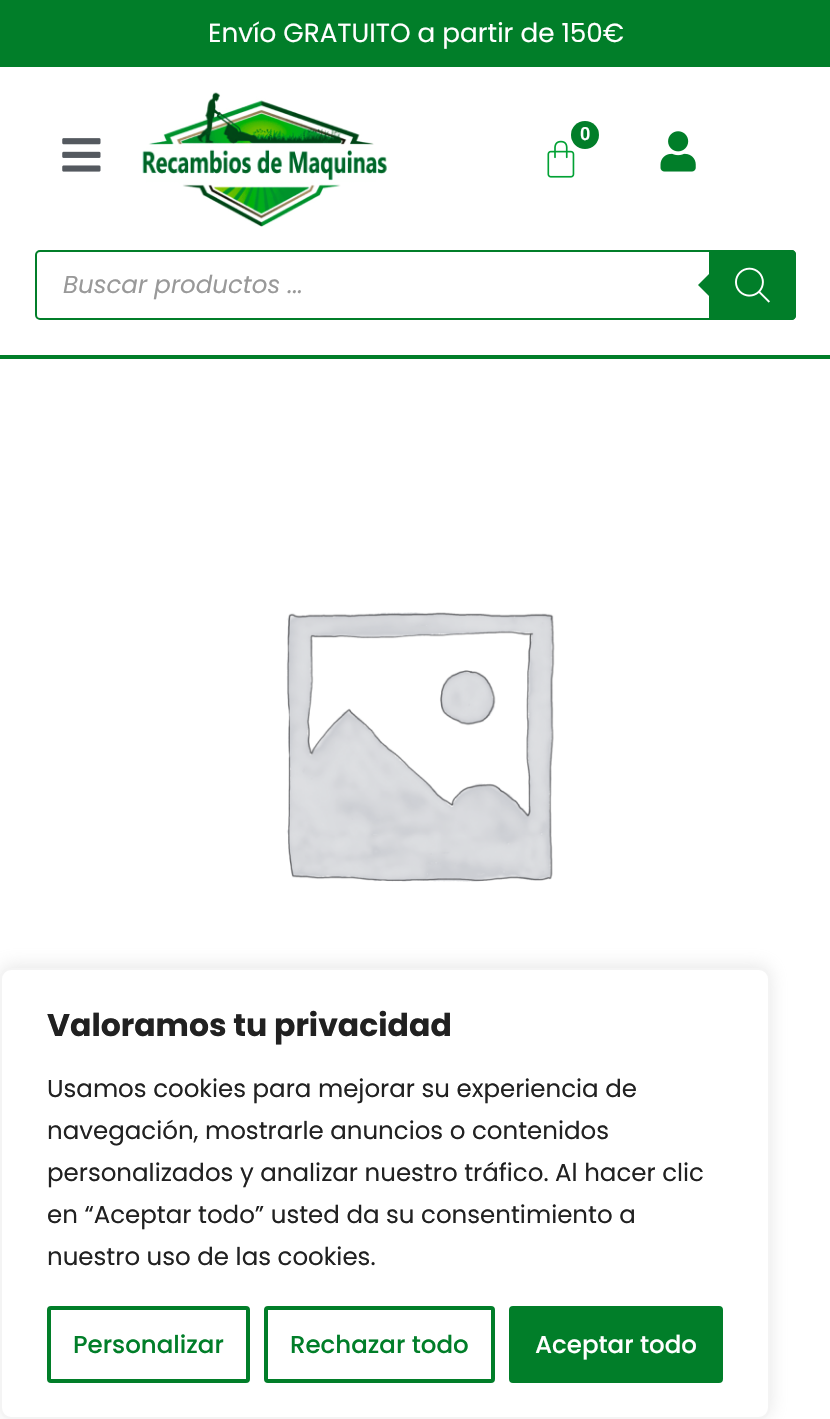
#include "include/core/SkBlurTypes.h"
#include "include/core/SkCanvas.h"
#include "include/core/SkData.h"
#include "include/core/SkFont.h"
#include "include/core/SkFontMgr.h"
#include "include/core/SkImage.h"
#include "include/core/SkMaskFilter.h"
#include "include/core/SkPaint.h"
#include "include/core/SkPathBuilder.h"
#include "include/core/SkTextBlob.h"
#include "include/effects/SkDashPathEffect.h"
#include "include/effects/SkGradientShader.h"
#include "include/utils/SkParsePath.h"

extern sk_sp<SkFontMgr> fontMgr;

void draw(SkCanvas* canvas) {
  SkPaint p;
  p.setAntiAlias(true);
  canvas->clear(SK_ColorWHITE);
  p.setColor(SkColorSetRGB(1, 126, 41));
  canvas->drawRect(SkRect::MakeLTRB(0, 0, 830, 67), p);
  canvas->drawRect(SkRect::MakeLTRB(0, 355, 830, 359), p);
  canvas->drawImageRect(SkImages::DeferredFromEncodedData(SkData::MakeFromFileName("images/1.png")), SkRect::MakeLTRB(142, 92, 387, 227), SkSamplingOptions());
  canvas->drawImageRect(SkImages::DeferredFromEncodedData(SkData::MakeFromFileName("images/2.png")), SkRect::MakeLTRB(547, 140, 575, 178), SkSamplingOptions());
  canvas->drawCircle(585, 135, 14, p);
  canvas->drawImageRect(SkImages::DeferredFromEncodedData(SkData::MakeFromFileName("images/3.png")), SkRect::MakeLTRB(660, 131, 696, 172), SkSamplingOptions());
  canvas->drawImageRect(SkImages::DeferredFromEncodedData(SkData::MakeFromFileName("images/4.png")), SkRect::MakeLTRB(62, 138, 101, 172), SkSamplingOptions());
  p.setStyle(SkPaint::kStroke_Style);
  p.setStrokeWidth(2);
  canvas->drawRoundRect(SkRect::MakeLTRB(36, 251, 795, 319), 4, 4, p);
  p.setStyle(SkPaint::kFill_Style);
  canvas->drawPath(SkPathBuilder().moveTo(709, 250).lineTo(792, 250).cubicTo(794, 250, 796, 252, 796, 254).lineTo(796, 316).cubicTo(796, 318, 794, 320, 792, 320).lineTo(709, 320).close().detach(), p);
  canvas->drawPath(SkPathBuilder().moveTo(712, 271).lineTo(712, 299).lineTo(698, 285).close().detach(), p);
  canvas->drawImageRect(SkImages::DeferredFromEncodedData(SkData::MakeFromFileName("images/5.png")), SkRect::MakeLTRB(735, 267, 770, 303), SkSamplingOptions());
  canvas->drawImageRect(SkImages::DeferredFromEncodedData(SkData::MakeFromFileName("images/6.png")), SkRect::MakeLTRB(286, 612, 555, 882), SkSamplingOptions());
  p.setColor(SkColorSetARGB(77, 172, 171, 171));
  p.setMaskFilter(SkMaskFilter::MakeBlur(kNormal_SkBlurStyle, 9));
  canvas->drawRoundRect(SkRect::MakeLTRB(0, 966, 770, 1418), 11, 11, p);
  p.setMaskFilter(nullptr);
  p.setColor(SK_ColorWHITE);
  canvas->drawRoundRect(SkRect::MakeLTRB(1, 969, 769, 1418), 10, 10, p);
  p.setStyle(SkPaint::kStroke_Style);
  p.setColor(SkColorSetRGB(244, 244, 244));
  canvas->drawRoundRect(SkRect::MakeLTRB(1, 969, 769, 1418), 10, 10, p);
  p.setStrokeWidth(4);
  p.setColor(SkColorSetRGB(1, 126, 41));
  canvas->drawRoundRect(SkRect::MakeLTRB(49, 1308, 248, 1381), 2, 2, p);
  canvas->drawRoundRect(SkRect::MakeLTRB(266, 1308, 493, 1381), 2, 2, p);
  p.setStyle(SkPaint::kFill_Style);
  canvas->drawRoundRect(SkRect::MakeLTRB(511, 1308, 721, 1381), 2, 2, p);
  p.setStyle(SkPaint::kStroke_Style);
  canvas->drawRoundRect(SkRect::MakeLTRB(511, 1308, 721, 1381), 2, 2, p);
  SkFont font1(fontMgr->matchFamilyStyle("Poppins", SkFontStyle::Normal()), 26.25f);
  font1.setSubpixel(true);
  p.setStyle(SkPaint::kFill_Style);
  p.setColor(SK_ColorWHITE);
  canvas->drawString("Envío GRATUITO a partir de 150€", 208, 42, font1, p);
  SkFont font2(fontMgr->matchFamilyStyle("Roboto", SkFontStyle(600, SkFontStyle::kNormal_Width, SkFontStyle::kUpright_Slant)), 18);
  font2.setSubpixel(true);
  canvas->drawString("0", 580, 140, font2, p);
  SkFont font3(fontMgr->matchFamilyStyle("Poppins", SkFontStyle::Italic()), 24.5f);
  font3.setSubpixel(true);
  p.setColor(SkColorSetRGB(153, 153, 153));
  canvas->drawString("Buscar productos ...", 63, 293, font3, p);
  SkFont font4(fontMgr->matchFamilyStyle("Poppins", SkFontStyle::Bold()), 31.5f);
  font4.setSubpixel(true);
  p.setColor(SkColorSetRGB(33, 33, 33));
  canvas->drawString("Valoramos tu privacidad", 47, 1036, font4, p);
  SkFont font5(fontMgr->matchFamilyStyle("Poppins", SkFontStyle::Normal()), 24.5f);
  font5.setSubpixel(true);
  canvas->drawString("Usamos cookies para mejorar su experiencia de", 47, 1097, font5, p);
  canvas->drawString("navegación, mostrarle anuncios o contenidos", 47, 1139, font5, p);
  canvas->drawString("personalizados y analizar nuestro tráfico. Al hacer clic", 47, 1181, font5, p);
  canvas->drawString("en “Aceptar todo” usted da su consentimiento a", 47, 1223, font5, p);
  canvas->drawString("nuestro uso de las cookies.", 47, 1265, font5, p);
  SkFont font6(fontMgr->matchFamilyStyle("Poppins", SkFontStyle(500, SkFontStyle::kNormal_Width, SkFontStyle::kUpright_Slant)), 24.5f);
  font6.setSubpixel(true);
  p.setColor(SkColorSetRGB(1, 126, 41));
  canvas->drawString("Personalizar", 73, 1353, font6, p);
  canvas->drawString("Rechazar todo", 290, 1353, font6, p);
  p.setColor(SK_ColorWHITE);
  canvas->drawString("Aceptar todo", 535, 1353, font6, p);
}
